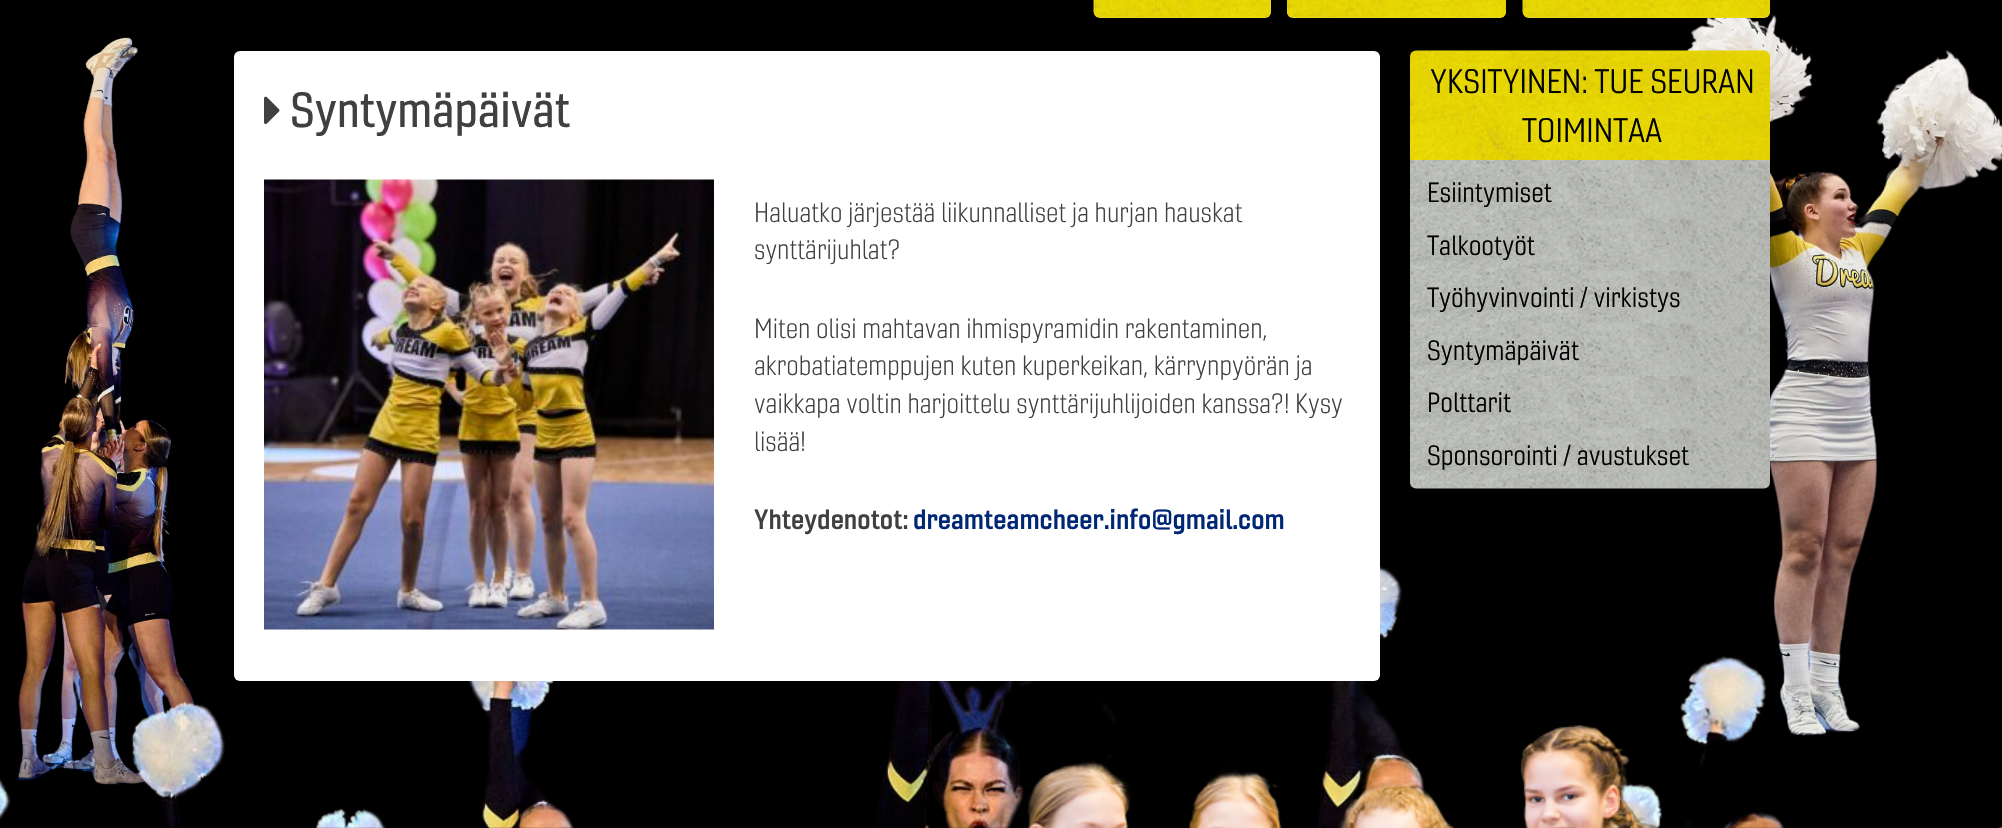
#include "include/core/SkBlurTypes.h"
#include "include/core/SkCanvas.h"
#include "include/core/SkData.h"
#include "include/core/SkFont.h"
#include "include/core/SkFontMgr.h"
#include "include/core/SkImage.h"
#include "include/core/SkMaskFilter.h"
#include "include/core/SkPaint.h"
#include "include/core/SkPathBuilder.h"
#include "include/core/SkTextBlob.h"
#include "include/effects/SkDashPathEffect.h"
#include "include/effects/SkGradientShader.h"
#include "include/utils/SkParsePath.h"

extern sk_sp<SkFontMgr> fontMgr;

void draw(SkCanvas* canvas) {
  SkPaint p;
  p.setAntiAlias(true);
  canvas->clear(SK_ColorBLACK);
  canvas->drawImageRect(SkImages::DeferredFromEncodedData(SkData::MakeFromFileName("images/1.png")), SkRect::MakeLTRB(0, 9, 2002, 828), SkSamplingOptions());
  p.setColor(SkColorSetRGB(237, 214, 57));
  canvas->drawRoundRect(SkRect::MakeLTRB(1094, -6, 1271, 18), 6, 6, p);
  canvas->drawImageRect(SkImages::DeferredFromEncodedData(SkData::MakeFromFileName("images/2.png")), SkRect::MakeLTRB(1093, 0, 1271, 18), SkSamplingOptions());
  canvas->drawRoundRect(SkRect::MakeLTRB(1287, -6, 1506, 18), 6, 6, p);
  canvas->drawImageRect(SkImages::DeferredFromEncodedData(SkData::MakeFromFileName("images/3.png")), SkRect::MakeLTRB(1287, 0, 1506, 18), SkSamplingOptions());
  canvas->drawRoundRect(SkRect::MakeLTRB(1523, -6, 1770, 18), 6, 6, p);
  canvas->drawImageRect(SkImages::DeferredFromEncodedData(SkData::MakeFromFileName("images/4.png")), SkRect::MakeLTRB(1522, 0, 1770, 18), SkSamplingOptions());
  p.setColor(SK_ColorWHITE);
  canvas->drawRoundRect(SkRect::MakeLTRB(234, 51, 1380, 681), 6, 6, p);
  canvas->drawImageRect(SkImages::DeferredFromEncodedData(SkData::MakeFromFileName("images/5.png")), SkRect::MakeLTRB(264, 96, 280, 125), SkSamplingOptions());
  canvas->drawImageRect(SkImages::DeferredFromEncodedData(SkData::MakeFromFileName("images/6.png")), SkRect::MakeLTRB(264, 179, 714, 630), SkSamplingOptions());
  canvas->drawImageRect(SkImages::DeferredFromEncodedData(SkData::MakeFromFileName("images/7.png")), SkRect::MakeLTRB(1409, 50, 1770, 160), SkSamplingOptions());
  canvas->drawImageRect(SkImages::DeferredFromEncodedData(SkData::MakeFromFileName("images/8.png")), SkRect::MakeLTRB(1410, 160, 1770, 219), SkSamplingOptions());
  canvas->drawImageRect(SkImages::DeferredFromEncodedData(SkData::MakeFromFileName("images/9.png")), SkRect::MakeLTRB(1410, 218, 1770, 271), SkSamplingOptions());
  canvas->drawImageRect(SkImages::DeferredFromEncodedData(SkData::MakeFromFileName("images/10.png")), SkRect::MakeLTRB(1410, 271, 1770, 324), SkSamplingOptions());
  canvas->drawImageRect(SkImages::DeferredFromEncodedData(SkData::MakeFromFileName("images/11.png")), SkRect::MakeLTRB(1410, 323, 1770, 376), SkSamplingOptions());
  canvas->drawImageRect(SkImages::DeferredFromEncodedData(SkData::MakeFromFileName("images/10.png")), SkRect::MakeLTRB(1410, 376, 1770, 429), SkSamplingOptions());
  canvas->drawImageRect(SkImages::DeferredFromEncodedData(SkData::MakeFromFileName("images/12.png")), SkRect::MakeLTRB(1410, 428, 1770, 489), SkSamplingOptions());
  canvas->drawImageRect(SkImages::DeferredFromEncodedData(SkData::MakeFromFileName("images/13.png")), SkRect::MakeLTRB(1020, 725, 1660, 828), SkSamplingOptions());
  SkFont font1(fontMgr->matchFamilyStyle("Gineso", SkFontStyle(600, SkFontStyle::kNormal_Width, SkFontStyle::kUpright_Slant)), 48);
  font1.setSubpixel(true);
  p.setColor(SkColorSetRGB(64, 64, 64));
  canvas->drawString("Syntymäpäivät", 290, 127, font1, p);
  SkFont font2(fontMgr->matchFamilyStyle("Gineso", SkFontStyle(300, SkFontStyle::kNormal_Width, SkFontStyle::kUpright_Slant)), 27);
  font2.setSubpixel(true);
  canvas->drawString("Haluatko järjestää liikunnalliset ja hurjan hauskat", 754, 222, font2, p);
  canvas->drawString("synttärijuhlat?", 754, 259, font2, p);
  canvas->drawString("Miten olisi mahtavan ihmispyramidin rakentaminen,", 754, 338, font2, p);
  canvas->drawString("akrobatiatemppujen kuten kuperkeikan, kärrynpyörän ja", 754, 375, font2, p);
  canvas->drawString("vaikkapa voltin harjoittelu synttärijuhlijoiden kanssa?! Kysy", 754, 413, font2, p);
  canvas->drawString("lisää!", 754, 451, font2, p);
  SkFont font3(fontMgr->matchFamilyStyle("Gineso", SkFontStyle::Bold()), 27);
  font3.setSubpixel(true);
  canvas->drawString("Yhteydenotot:", 754, 529, font3, p);
  p.setColor(SkColorSetRGB(0, 39, 117));
  canvas->drawString("dreamteamcheer.info@gmail.com", 913, 529, font3, p);
  SkFont font4(fontMgr->matchFamilyStyle("Gineso", SkFontStyle::Normal()), 33);
  font4.setSubpixel(true);
  p.setColor(SK_ColorBLACK);
  canvas->drawString("YKSITYINEN: TUE SEURAN", 1430, 93, font4, p);
  canvas->drawString("TOIMINTAA", 1522, 142, font4, p);
  SkFont font5(fontMgr->matchFamilyStyle("Gineso", SkFontStyle::Normal()), 27);
  font5.setSubpixel(true);
  canvas->drawString("Esiintymiset", 1427, 202, font5, p);
  canvas->drawString("Talkootyöt", 1427, 255, font5, p);
  canvas->drawString("Työhyvinvointi / virkistys", 1427, 307, font5, p);
  canvas->drawString("Syntymäpäivät", 1427, 360, font5, p);
  canvas->drawString("Polttarit", 1427, 412, font5, p);
  canvas->drawString("Sponsorointi / avustukset", 1427, 465, font5, p);
}
